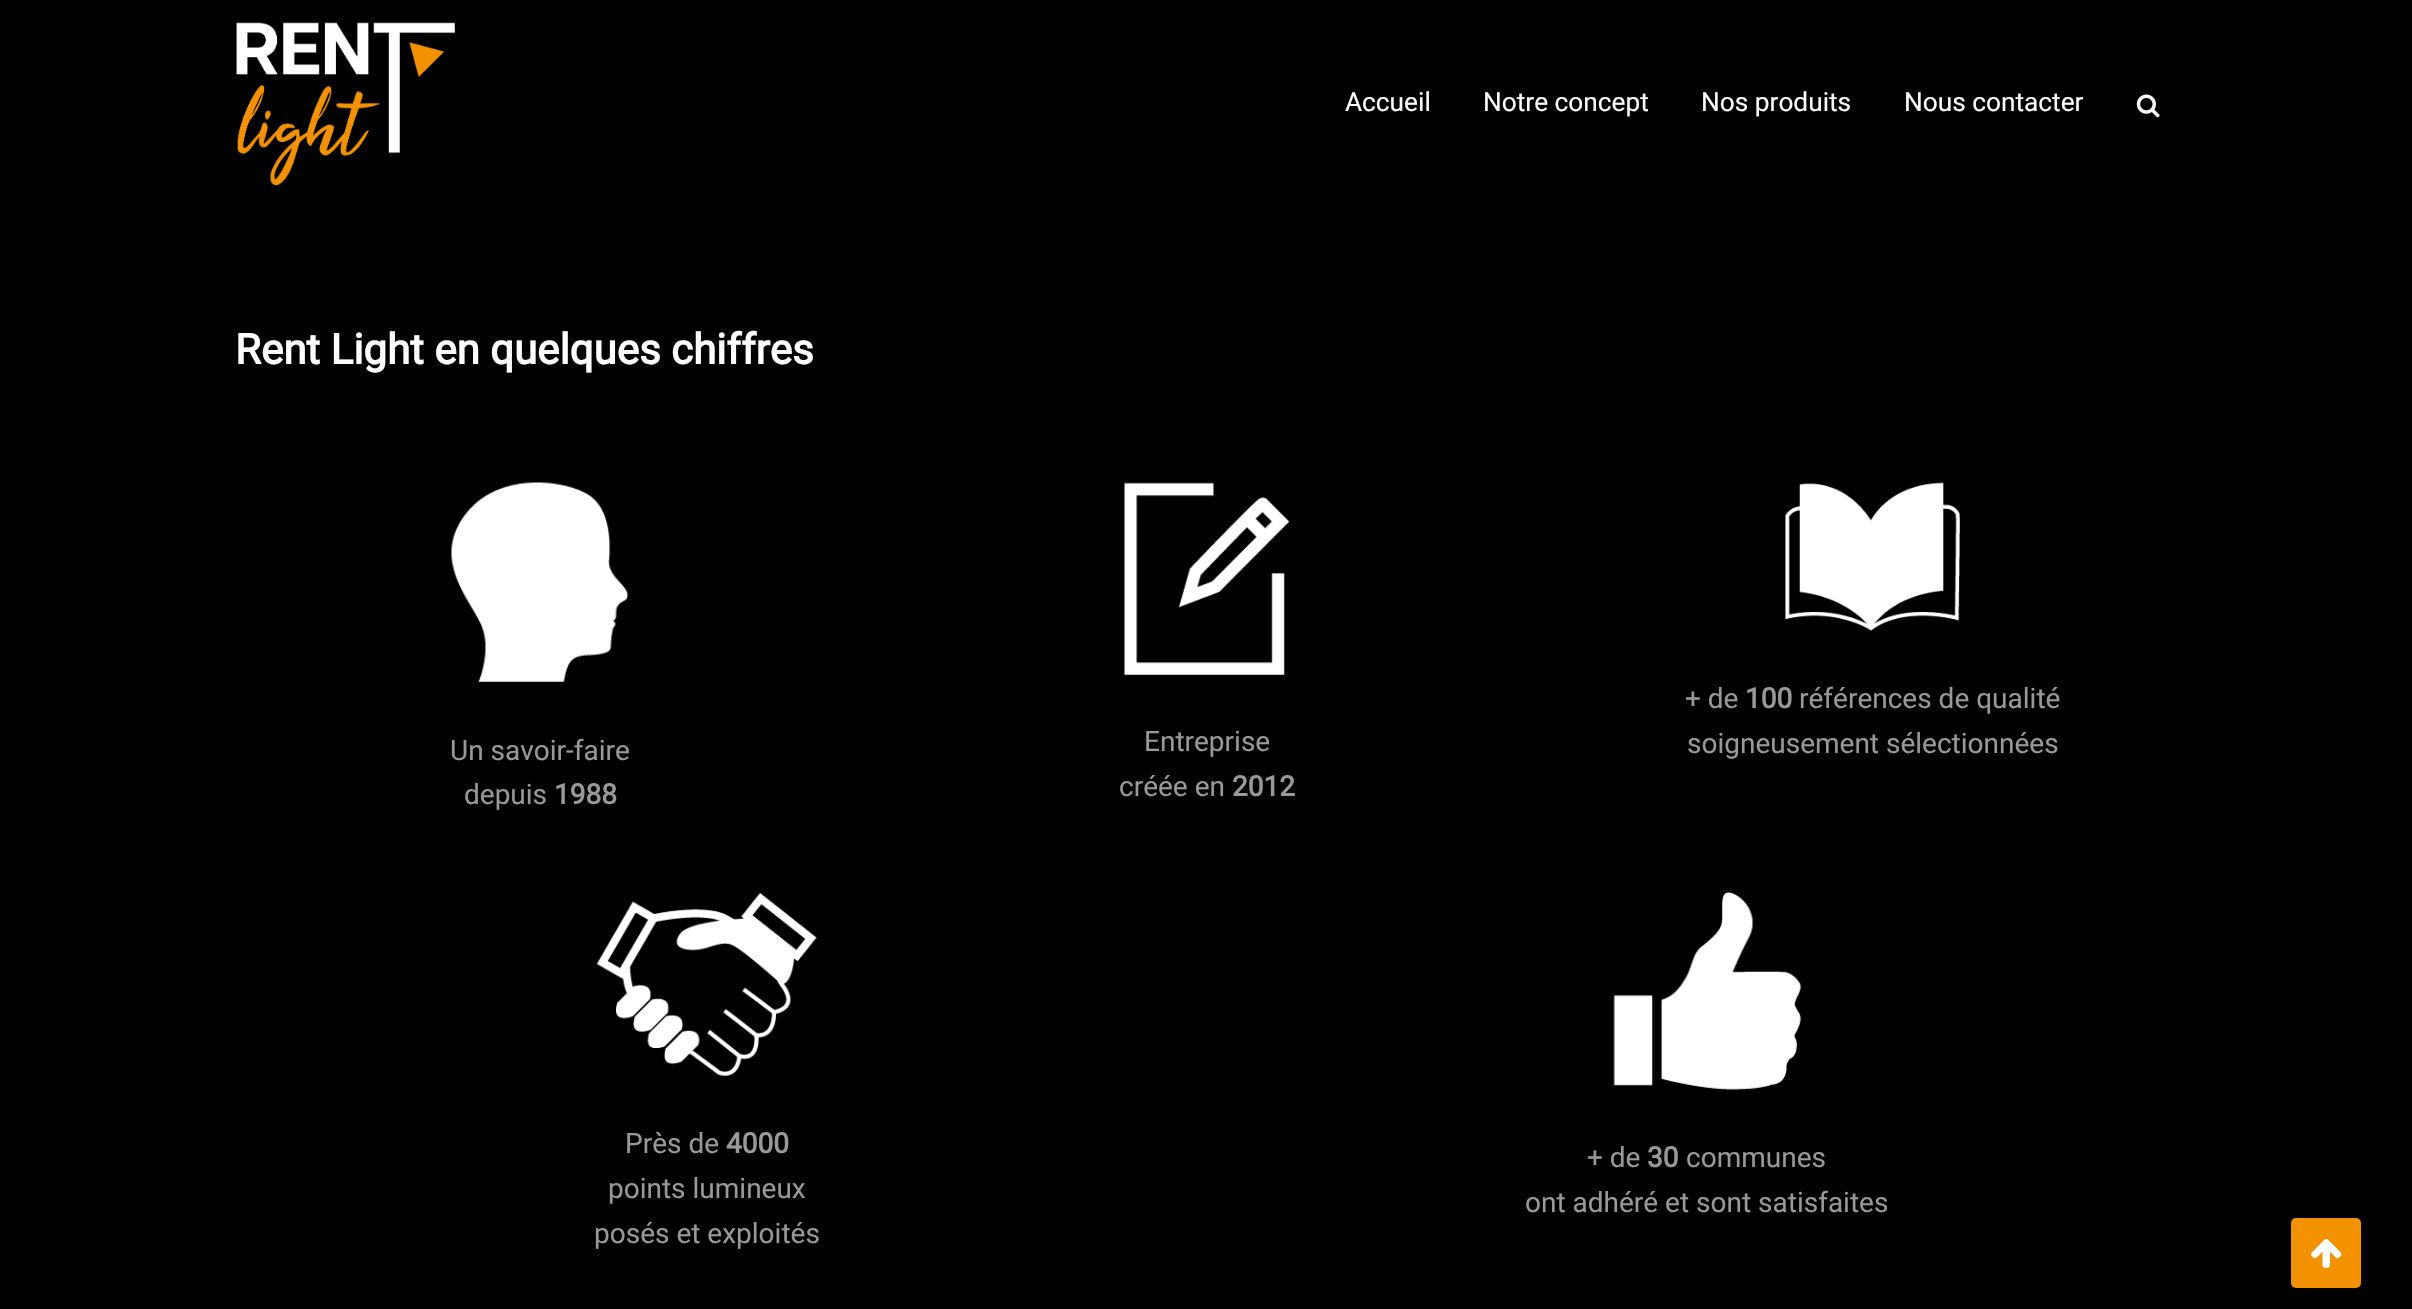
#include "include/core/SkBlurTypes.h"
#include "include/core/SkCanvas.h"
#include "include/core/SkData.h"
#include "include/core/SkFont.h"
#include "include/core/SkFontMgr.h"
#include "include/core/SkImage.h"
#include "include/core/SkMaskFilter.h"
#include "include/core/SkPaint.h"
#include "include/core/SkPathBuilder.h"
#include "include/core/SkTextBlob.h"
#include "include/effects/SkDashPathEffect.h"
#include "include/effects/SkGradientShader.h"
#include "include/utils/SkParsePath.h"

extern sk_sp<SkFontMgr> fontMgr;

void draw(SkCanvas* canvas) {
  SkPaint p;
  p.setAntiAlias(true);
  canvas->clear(SK_ColorBLACK);
  canvas->drawImageRect(SkImages::DeferredFromEncodedData(SkData::MakeFromFileName("images/1.png")), SkRect::MakeLTRB(236, 22, 455, 186), SkSamplingOptions());
  canvas->drawImageRect(SkImages::DeferredFromEncodedData(SkData::MakeFromFileName("images/2.png")), SkRect::MakeLTRB(2136, 94, 2160, 118), SkSamplingOptions());
  canvas->drawImageRect(SkImages::DeferredFromEncodedData(SkData::MakeFromFileName("images/3.png")), SkRect::MakeLTRB(451, 482, 629, 682), SkSamplingOptions());
  canvas->drawImageRect(SkImages::DeferredFromEncodedData(SkData::MakeFromFileName("images/4.png")), SkRect::MakeLTRB(1124, 482, 1290, 675), SkSamplingOptions());
  canvas->drawImageRect(SkImages::DeferredFromEncodedData(SkData::MakeFromFileName("images/5.png")), SkRect::MakeLTRB(1785, 482, 1960, 631), SkSamplingOptions());
  canvas->drawImageRect(SkImages::DeferredFromEncodedData(SkData::MakeFromFileName("images/6.png")), SkRect::MakeLTRB(596, 893, 817, 1076), SkSamplingOptions());
  canvas->drawImageRect(SkImages::DeferredFromEncodedData(SkData::MakeFromFileName("images/7.png")), SkRect::MakeLTRB(1613, 892, 1801, 1090), SkSamplingOptions());
  p.setColor(SkColorSetRGB(243, 146, 0));
  canvas->drawRoundRect(SkRect::MakeLTRB(2291, 1218, 2361, 1288), 5, 5, p);
  canvas->drawImageRect(SkImages::DeferredFromEncodedData(SkData::MakeFromFileName("images/8.png")), SkRect::MakeLTRB(2311, 1239, 2342, 1268), SkSamplingOptions());
  SkFont font1(fontMgr->matchFamilyStyle("Roboto", SkFontStyle::Normal()), 26.25f);
  font1.setSubpixel(true);
  p.setColor(SK_ColorWHITE);
  canvas->drawString("Accueil", 1345, 111, font1, p);
  canvas->drawString("Notre concept", 1483, 111, font1, p);
  canvas->drawString("Nos produits", 1701, 111, font1, p);
  canvas->drawString("Nous contacter", 1904, 111, font1, p);
  SkFont font2(fontMgr->matchFamilyStyle("Roboto", SkFontStyle::Bold()), 42);
  font2.setSubpixel(true);
  canvas->drawString("Rent Light en quelques chiffres", 235, 364, font2, p);
  SkFont font3(fontMgr->matchFamilyStyle("Roboto", SkFontStyle::Normal()), 28);
  font3.setSubpixel(true);
  p.setColor(SkColorSetRGB(153, 153, 153));
  canvas->drawString("Un savoir-faire", 450, 760, font3, p);
  canvas->drawString("depuis", 464, 804, font3, p);
  SkFont font4(fontMgr->matchFamilyStyle("Roboto", SkFontStyle::Bold()), 28);
  font4.setSubpixel(true);
  canvas->drawString("1988", 554, 804, font4, p);
  canvas->drawString("Entreprise", 1144, 751, font3, p);
  canvas->drawString("créée en", 1119, 796, font3, p);
  canvas->drawString("2012", 1232, 796, font4, p);
  canvas->drawString("+ de", 1685, 708, font3, p);
  canvas->drawString("100", 1745, 708, font4, p);
  canvas->drawString("références de qualité", 1799, 708, font3, p);
  canvas->drawString("soigneusement sélectionnées", 1687, 753, font3, p);
  canvas->drawString("Près de", 625, 1153, font3, p);
  canvas->drawString("4000", 726, 1153, font4, p);
  canvas->drawString("points lumineux", 608, 1198, font3, p);
  canvas->drawString("posés et exploités", 594, 1243, font3, p);
  canvas->drawString("+ de", 1587, 1167, font3, p);
  canvas->drawString("30", 1647, 1167, font4, p);
  canvas->drawString("communes", 1686, 1167, font3, p);
  canvas->drawString("ont adhéré et sont satisfaites", 1525, 1212, font3, p);
}
